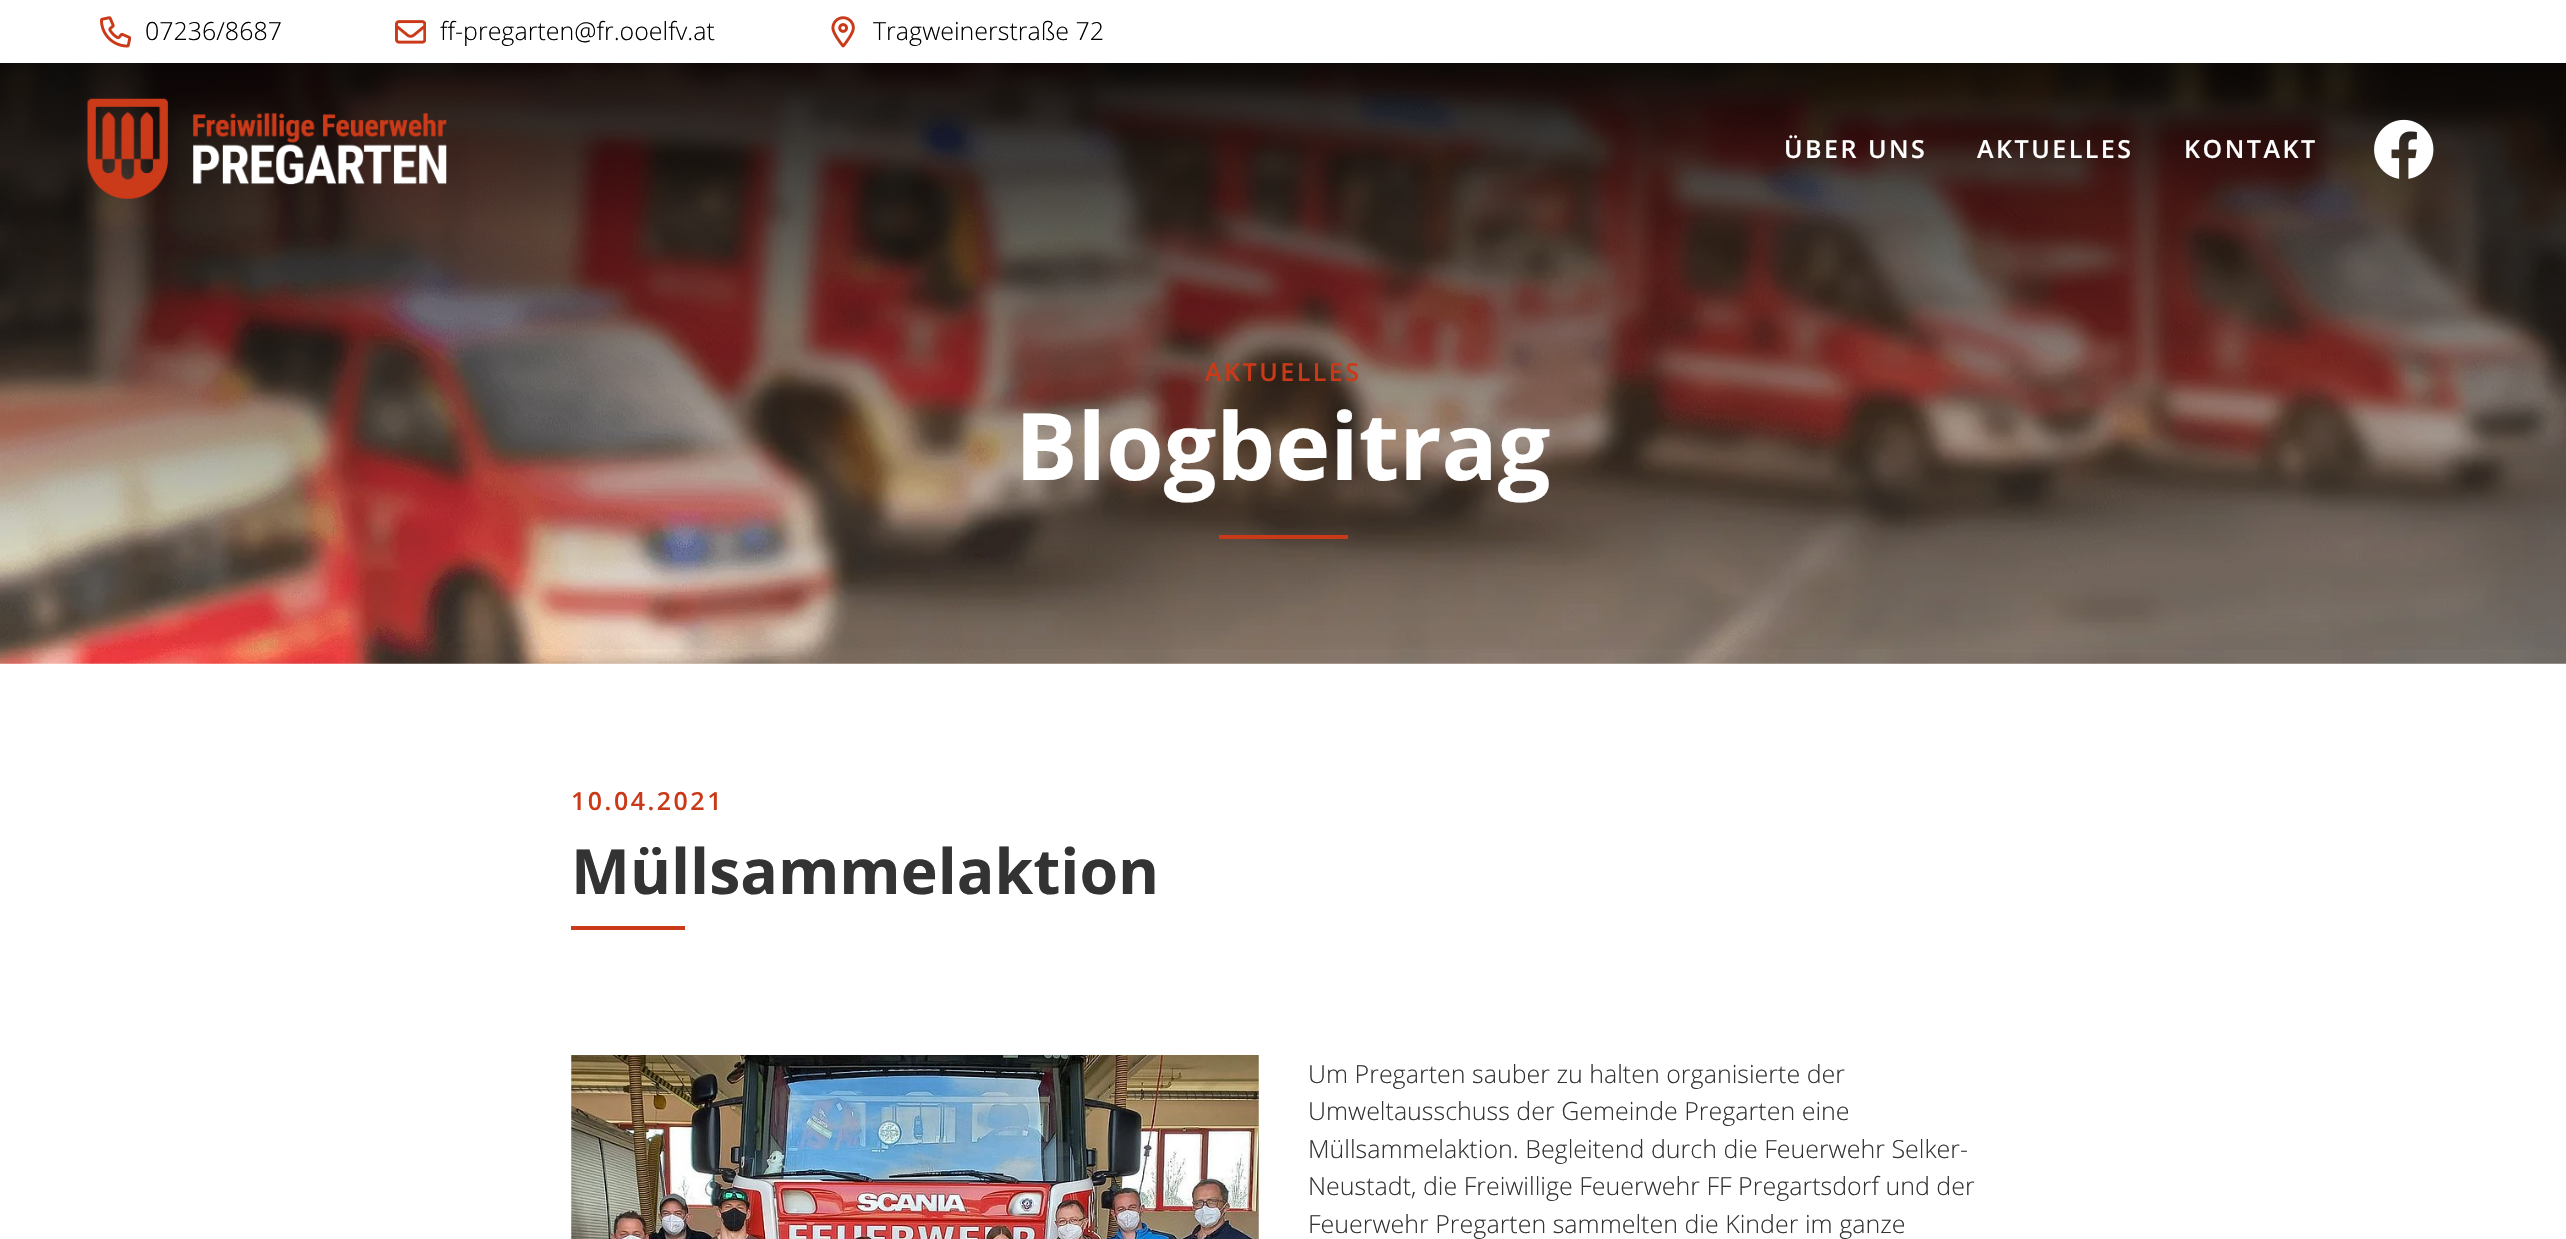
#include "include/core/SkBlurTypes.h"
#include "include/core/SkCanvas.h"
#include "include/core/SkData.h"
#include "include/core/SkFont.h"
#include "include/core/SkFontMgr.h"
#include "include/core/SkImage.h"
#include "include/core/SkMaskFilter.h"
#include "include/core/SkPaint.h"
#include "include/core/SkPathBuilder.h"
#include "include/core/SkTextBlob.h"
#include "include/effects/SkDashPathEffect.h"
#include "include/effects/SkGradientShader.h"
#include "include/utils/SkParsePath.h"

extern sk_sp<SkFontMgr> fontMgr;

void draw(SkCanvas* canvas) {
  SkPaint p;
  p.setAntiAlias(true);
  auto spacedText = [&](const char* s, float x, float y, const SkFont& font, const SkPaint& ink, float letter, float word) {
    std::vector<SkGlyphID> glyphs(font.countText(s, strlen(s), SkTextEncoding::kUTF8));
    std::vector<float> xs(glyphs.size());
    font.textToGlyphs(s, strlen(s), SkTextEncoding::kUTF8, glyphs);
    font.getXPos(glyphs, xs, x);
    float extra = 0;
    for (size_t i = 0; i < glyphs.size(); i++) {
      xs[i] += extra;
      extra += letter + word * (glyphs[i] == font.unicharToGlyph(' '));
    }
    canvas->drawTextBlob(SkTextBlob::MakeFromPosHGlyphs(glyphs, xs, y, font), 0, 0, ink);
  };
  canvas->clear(SK_ColorWHITE);
  canvas->drawImageRect(SkImages::DeferredFromEncodedData(SkData::MakeFromFileName("images/1.png")), SkRect::MakeLTRB(100, 16, 131, 48), SkSamplingOptions());
  canvas->drawImageRect(SkImages::DeferredFromEncodedData(SkData::MakeFromFileName("images/2.png")), SkRect::MakeLTRB(395, 20, 426, 44), SkSamplingOptions());
  canvas->drawImageRect(SkImages::DeferredFromEncodedData(SkData::MakeFromFileName("images/3.png")), SkRect::MakeLTRB(831, 16, 855, 48), SkSamplingOptions());
  canvas->drawImageRect(SkImages::DeferredFromEncodedData(SkData::MakeFromFileName("images/6.png")), SkRect::MakeLTRB(0, 63, 2566, 664), SkSamplingOptions());
  {
    const SkColor colors[] = {SK_ColorBLACK, SkColorSetARGB(0, 0, 0, 0)};
    const float stops[] = {0, 1};
    const SkPoint ends[] = {{1283, -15}, {1283, 664}};
    p.setShader(SkGradientShader::MakeLinear(ends, colors, stops, 2, SkTileMode::kClamp));
    p.setAlpha(255);
  }
  canvas->drawRect(SkRect::MakeLTRB(0, 63, 2566, 649), p);
  canvas->drawImageRect(SkImages::DeferredFromEncodedData(SkData::MakeFromFileName("images/4.png")), SkRect::MakeLTRB(87, 98, 447, 199), SkSamplingOptions());
  canvas->drawImageRect(SkImages::DeferredFromEncodedData(SkData::MakeFromFileName("images/5.png")), SkRect::MakeLTRB(2374, 119, 2434, 179), SkSamplingOptions());
  p.setShader(nullptr);
  p.setColor(SkColorSetRGB(202, 58, 25));
  canvas->drawRect(SkRect::MakeLTRB(1219, 535, 1348, 539), p);
  canvas->drawRect(SkRect::MakeLTRB(571, 926, 685, 930), p);
  canvas->drawImageRect(SkImages::DeferredFromEncodedData(SkData::MakeFromFileName("images/7.png")), SkRect::MakeLTRB(571, 1055, 1259, 1239), SkSamplingOptions());
  SkFont font1(fontMgr->matchFamilyStyle("Open Sans", SkFontStyle(300, SkFontStyle::kNormal_Width, SkFontStyle::kUpright_Slant)), 25);
  font1.setSubpixel(true);
  p.setColor(SK_ColorBLACK);
  canvas->drawString("07236/8687", 145, 40, font1, p);
  canvas->drawString("ff-pregarten@fr.ooelfv.at", 440, 40, font1, p);
  canvas->drawString("Tragweinerstraße 72", 873, 40, font1, p);
  SkFont font2(fontMgr->matchFamilyStyle("Open Sans", SkFontStyle(600, SkFontStyle::kNormal_Width, SkFontStyle::kUpright_Slant)), 25);
  font2.setSubpixel(true);
  p.setColor(SK_ColorWHITE);
  spacedText("ÜBER UNS", 1784, 158, font2, p, 2.5f, 0);
  spacedText("AKTUELLES", 1977, 158, font2, p, 2.5f, 0);
  spacedText("KONTAKT", 2184, 158, font2, p, 2.5f, 0);
  p.setColor(SkColorSetRGB(202, 58, 25));
  spacedText("AKTUELLES", 1205, 381, font2, p, 2.5f, 0);
  SkFont font3(fontMgr->matchFamilyStyle("Khula", SkFontStyle::Bold()), 100);
  font3.setSubpixel(true);
  p.setColor(SK_ColorWHITE);
  canvas->drawString("Blogbeitrag", 1015, 480, font3, p);
  p.setColor(SkColorSetRGB(202, 58, 25));
  spacedText("10.04.2021", 571, 810, font2, p, 2.5f, 0);
  SkFont font4(fontMgr->matchFamilyStyle("Open Sans", SkFontStyle::Bold()), 62.5f);
  font4.setSubpixel(true);
  p.setColor(SkColorSetRGB(51, 51, 51));
  canvas->drawString("Müllsammelaktion", 571, 894, font4, p);
  canvas->drawString("Um Pregarten sauber zu halten organisierte der", 1308, 1083, font1, p);
  canvas->drawString("Umweltausschuss der Gemeinde Pregarten eine", 1308, 1120, font1, p);
  canvas->drawString("Müllsammelaktion. Begleitend durch die Feuerwehr Selker-", 1308, 1158, font1, p);
  canvas->drawString("Neustadt, die Freiwillige Feuerwehr FF Pregartsdorf und der", 1308, 1195, font1, p);
  canvas->drawString("Feuerwehr Pregarten sammelten die Kinder im ganze", 1308, 1233, font1, p);
}
